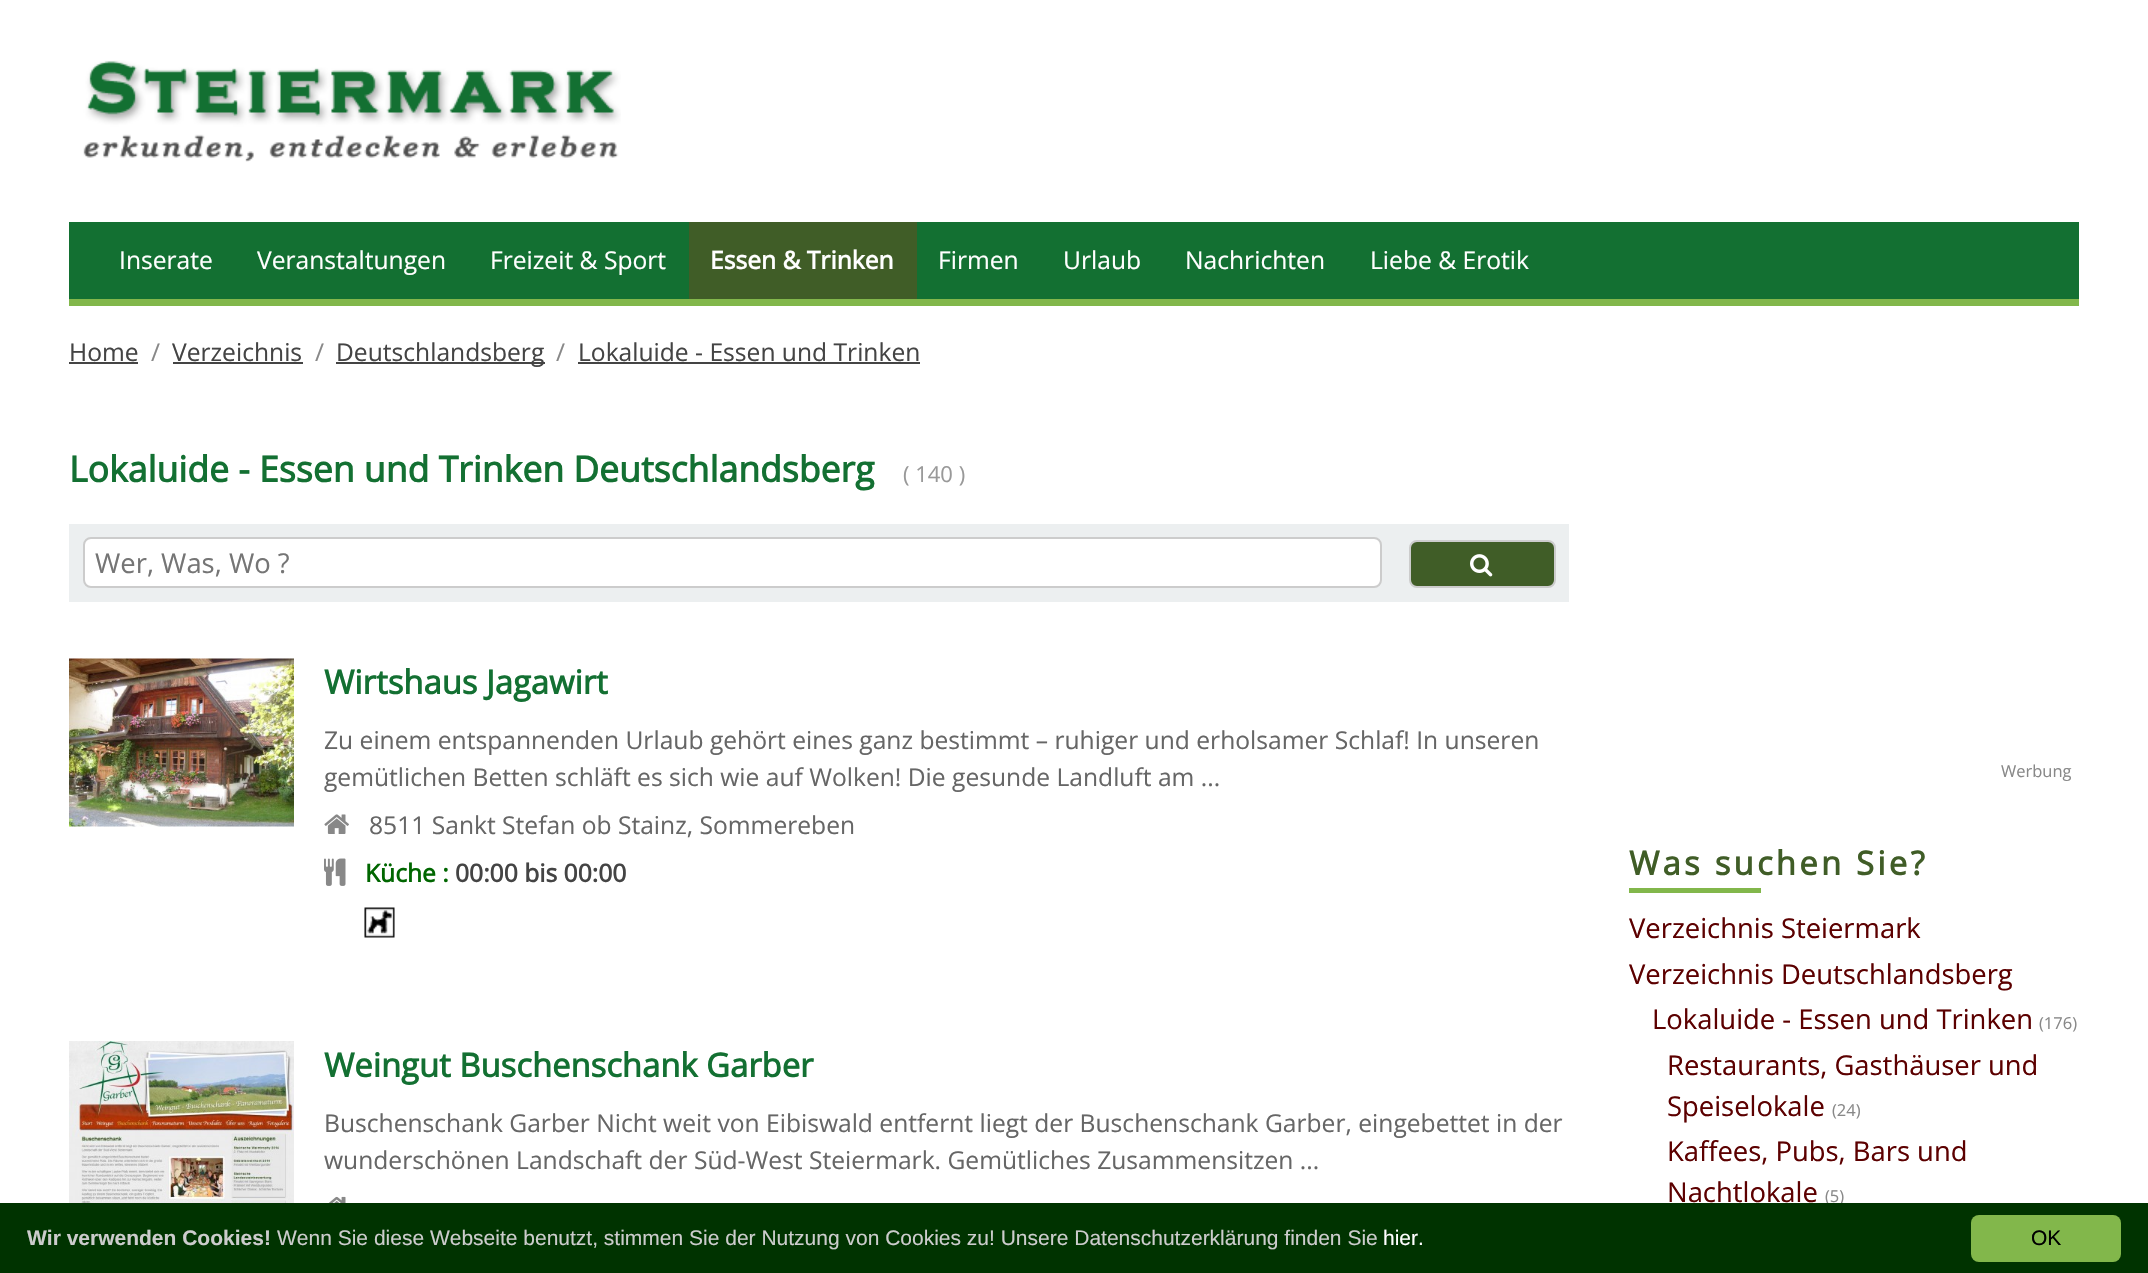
#include "include/core/SkBlurTypes.h"
#include "include/core/SkCanvas.h"
#include "include/core/SkData.h"
#include "include/core/SkFont.h"
#include "include/core/SkFontMgr.h"
#include "include/core/SkImage.h"
#include "include/core/SkMaskFilter.h"
#include "include/core/SkPaint.h"
#include "include/core/SkPathBuilder.h"
#include "include/core/SkTextBlob.h"
#include "include/effects/SkDashPathEffect.h"
#include "include/effects/SkGradientShader.h"
#include "include/utils/SkParsePath.h"

extern sk_sp<SkFontMgr> fontMgr;

void draw(SkCanvas* canvas) {
  SkPaint p;
  p.setAntiAlias(true);
  auto spacedText = [&](const char* s, float x, float y, const SkFont& font, const SkPaint& ink, float letter, float word) {
    std::vector<SkGlyphID> glyphs(font.countText(s, strlen(s), SkTextEncoding::kUTF8));
    std::vector<float> xs(glyphs.size());
    font.textToGlyphs(s, strlen(s), SkTextEncoding::kUTF8, glyphs);
    font.getXPos(glyphs, xs, x);
    float extra = 0;
    for (size_t i = 0; i < glyphs.size(); i++) {
      xs[i] += extra;
      extra += letter + word * (glyphs[i] == font.unicharToGlyph(' '));
    }
    canvas->drawTextBlob(SkTextBlob::MakeFromPosHGlyphs(glyphs, xs, y, font), 0, 0, ink);
  };
  canvas->clear(SK_ColorWHITE);
  canvas->drawImageRect(SkImages::DeferredFromEncodedData(SkData::MakeFromFileName("images/1.png")), SkRect::MakeLTRB(83, 60, 621, 162), SkSamplingOptions());
  p.setColor(SkColorSetRGB(19, 112, 50));
  canvas->drawRect(SkRect::MakeLTRB(69, 222, 2079, 299), p);
  p.setColor(SkColorSetRGB(130, 183, 75));
  canvas->drawRect(SkRect::MakeLTRB(69, 299, 2079, 306), p);
  p.setColor(SkColorSetRGB(64, 93, 39));
  canvas->drawRect(SkRect::MakeLTRB(689, 222, 917, 299), p);
  p.setColor(SkColorSetRGB(68, 68, 68));
  canvas->drawRect(SkRect::MakeLTRB(69, 362, 138, 364), p);
  canvas->drawRect(SkRect::MakeLTRB(173, 362, 303, 364), p);
  canvas->drawRect(SkRect::MakeLTRB(336, 362, 545, 364), p);
  canvas->drawRect(SkRect::MakeLTRB(578, 362, 920, 364), p);
  p.setColor(SkColorSetRGB(236, 239, 240));
  canvas->drawRect(SkRect::MakeLTRB(69, 524, 1569, 602), p);
  p.setColor(SK_ColorWHITE);
  canvas->drawRoundRect(SkRect::MakeLTRB(84, 538, 1381, 587), 7, 7, p);
  p.setStyle(SkPaint::kStroke_Style);
  p.setStrokeWidth(2);
  p.setColor(SkColorSetRGB(204, 204, 204));
  canvas->drawRoundRect(SkRect::MakeLTRB(84, 538, 1381, 587), 7, 7, p);
  p.setStyle(SkPaint::kFill_Style);
  p.setColor(SkColorSetRGB(64, 93, 39));
  canvas->drawRoundRect(SkRect::MakeLTRB(1410, 541, 1555, 587), 7, 7, p);
  p.setStyle(SkPaint::kStroke_Style);
  p.setColor(SkColorSetRGB(204, 204, 204));
  canvas->drawRoundRect(SkRect::MakeLTRB(1410, 541, 1555, 587), 7, 7, p);
  canvas->drawImageRect(SkImages::DeferredFromEncodedData(SkData::MakeFromFileName("images/2.png")), SkRect::MakeLTRB(1470, 554, 1493, 577), SkSamplingOptions());
  canvas->drawImageRect(SkImages::DeferredFromEncodedData(SkData::MakeFromFileName("images/3.png")), SkRect::MakeLTRB(69, 658, 294, 827), SkSamplingOptions());
  canvas->drawImageRect(SkImages::DeferredFromEncodedData(SkData::MakeFromFileName("images/4.png")), SkRect::MakeLTRB(324, 814, 349, 834), SkSamplingOptions());
  canvas->drawImageRect(SkImages::DeferredFromEncodedData(SkData::MakeFromFileName("images/5.png")), SkRect::MakeLTRB(324, 858, 346, 886), SkSamplingOptions());
  canvas->drawImageRect(SkImages::DeferredFromEncodedData(SkData::MakeFromFileName("images/6.png")), SkRect::MakeLTRB(364, 907, 395, 938), SkSamplingOptions());
  canvas->drawImageRect(SkImages::DeferredFromEncodedData(SkData::MakeFromFileName("images/7.png")), SkRect::MakeLTRB(69, 1041, 294, 1203), SkSamplingOptions());
  canvas->drawImageRect(SkImages::DeferredFromEncodedData(SkData::MakeFromFileName("images/8.png")), SkRect::MakeLTRB(328, 1196, 346, 1203), SkSamplingOptions());
  p.setStyle(SkPaint::kFill_Style);
  p.setColor(SkColorSetRGB(130, 183, 75));
  canvas->drawRect(SkRect::MakeLTRB(1629, 888, 1761, 893), p);
  SkFont font1(fontMgr->matchFamilyStyle("Open Sans", SkFontStyle::Normal()), 24.62f);
  font1.setSubpixel(true);
  p.setColor(SK_ColorWHITE);
  canvas->drawString("Inserate", 119, 269, font1, p);
  canvas->drawString("Veranstaltungen", 257, 269, font1, p);
  canvas->drawString("Freizeit & Sport", 490, 269, font1, p);
  SkFont font2(fontMgr->matchFamilyStyle("Open Sans", SkFontStyle::Bold()), 24.62f);
  font2.setSubpixel(true);
  canvas->drawString("Essen & Trinken", 710, 269, font2, p);
  canvas->drawString("Firmen", 938, 269, font1, p);
  canvas->drawString("Urlaub", 1063, 269, font1, p);
  canvas->drawString("Nachrichten", 1185, 269, font1, p);
  canvas->drawString("Liebe & Erotik", 1370, 269, font1, p);
  p.setColor(SkColorSetRGB(68, 68, 68));
  canvas->drawString("Home", 69, 361, font1, p);
  p.setColor(SkColorSetRGB(136, 136, 136));
  canvas->drawString("/", 151, 361, font1, p);
  p.setColor(SkColorSetRGB(68, 68, 68));
  canvas->drawString("Verzeichnis", 172, 361, font1, p);
  p.setColor(SkColorSetRGB(136, 136, 136));
  canvas->drawString("/", 315, 361, font1, p);
  p.setColor(SkColorSetRGB(68, 68, 68));
  canvas->drawString("Deutschlandsberg", 336, 361, font1, p);
  p.setColor(SkColorSetRGB(136, 136, 136));
  canvas->drawString("/", 556, 361, font1, p);
  p.setColor(SkColorSetRGB(68, 68, 68));
  canvas->drawString("Lokaluide - Essen und Trinken", 578, 361, font1, p);
  SkFont font3(fontMgr->matchFamilyStyle("Open Sans", SkFontStyle::Bold()), 35.6f);
  font3.setSubpixel(true);
  p.setColor(SkColorSetRGB(19, 112, 50));
  canvas->drawString("Lokaluide - Essen und Trinken Deutschlandsberg", 69, 482, font3, p);
  SkFont font4(fontMgr->matchFamilyStyle("Open Sans", SkFontStyle::Normal()), 22);
  font4.setSubpixel(true);
  p.setColor(SkColorSetRGB(153, 153, 153));
  canvas->drawString("( 140 )", 903, 482, font4, p);
  SkFont font5(fontMgr->matchFamilyStyle("Open Sans", SkFontStyle::Normal()), 27.4f);
  font5.setSubpixel(true);
  p.setColor(SkColorSetRGB(117, 117, 117));
  canvas->drawString("Wer, Was, Wo ?", 95, 573, font5, p);
  SkFont font6(fontMgr->matchFamilyStyle("Open Sans", SkFontStyle::Bold()), 32.8f);
  font6.setSubpixel(true);
  p.setColor(SkColorSetRGB(19, 112, 50));
  canvas->drawString("Wirtshaus Jagawirt", 324, 694, font6, p);
  p.setColor(SkColorSetRGB(102, 102, 102));
  canvas->drawString("Zu einem entspannenden Urlaub gehört eines ganz bestimmt – ruhiger und erholsamer Schlaf! In unseren", 324, 749, font1, p);
  canvas->drawString("gemütlichen Betten schläft es sich wie auf Wolken! Die gesunde Landluft am ...", 324, 786, font1, p);
  canvas->drawString("8511 Sankt Stefan ob Stainz, Sommereben", 369, 834, font1, p);
  p.setColor(SkColorSetRGB(0, 102, 0));
  canvas->drawString("Küche :", 365, 882, font2, p);
  p.setColor(SkColorSetRGB(68, 68, 68));
  canvas->drawString("00:00 bis 00:00", 455, 882, font2, p);
  p.setColor(SkColorSetRGB(19, 112, 50));
  canvas->drawString("Weingut Buschenschank Garber", 324, 1077, font6, p);
  p.setColor(SkColorSetRGB(102, 102, 102));
  canvas->drawString("Buschenschank Garber Nicht weit von Eibiswald entfernt liegt der Buschenschank Garber, eingebettet in der", 324, 1132, font1, p);
  canvas->drawString("wunderschönen Landschaft der Süd-West Steiermark. Gemütliches Zusammensitzen ...", 324, 1169, font1, p);
  SkFont font7(fontMgr->matchFamilyStyle("Open Sans", SkFontStyle::Normal()), 16.5f);
  font7.setSubpixel(true);
  p.setColor(SkColorSetRGB(136, 136, 136));
  canvas->drawString("Werbung", 2001, 777, font7, p);
  p.setColor(SkColorSetRGB(64, 93, 39));
  spacedText("Was suchen Sie?", 1629, 875, font6, p, 3.25f, 0);
  p.setColor(SkColorSetRGB(92, 0, 0));
  canvas->drawString("Verzeichnis Steiermark", 1629, 938, font5, p);
  canvas->drawString("Verzeichnis Deutschlandsberg", 1629, 984, font5, p);
  canvas->drawString("Lokaluide - Essen und Trinken", 1652, 1029, font5, p);
  p.setColor(SkColorSetRGB(136, 136, 136));
  canvas->drawString("(176)", 2039, 1029, font7, p);
  p.setColor(SkColorSetRGB(92, 0, 0));
  canvas->drawString("Restaurants, Gasthäuser und", 1667, 1075, font5, p);
  canvas->drawString("Speiselokale", 1667, 1116, font5, p);
  p.setColor(SkColorSetRGB(136, 136, 136));
  canvas->drawString("(24)", 1832, 1116, font7, p);
  p.setColor(SkColorSetRGB(92, 0, 0));
  canvas->drawString("Kaffees, Pubs, Bars und", 1667, 1161, font5, p);
  canvas->drawString("Nachtlokale", 1667, 1202, font5, p);
  p.setColor(SkColorSetRGB(136, 136, 136));
  canvas->drawString("(5)", 1825, 1202, font7, p);
  p.setColor(SkColorSetRGB(0, 51, 0));
  canvas->drawRect(SkRect::MakeLTRB(0, 1203, 2148, 1273), p);
  SkFont font8(fontMgr->matchFamilyStyle("Liberation Sans", SkFontStyle::Bold()), 21);
  font8.setSubpixel(true);
  p.setColor(SkColorSetRGB(204, 204, 204));
  canvas->drawString("Wir verwenden Cookies!", 27, 1245, font8, p);
  SkFont font9(fontMgr->matchFamilyStyle("Liberation Sans", SkFontStyle::Normal()), 21);
  font9.setSubpixel(true);
  canvas->drawString("Wenn Sie diese Webseite benutzt, stimmen Sie der Nutzung von Cookies zu! Unsere Datenschutzerklärung finden Sie", 277, 1245, font9, p);
  p.setColor(SK_ColorWHITE);
  canvas->drawString("hier.", 1383, 1245, font9, p);
  p.setColor(SkColorSetRGB(130, 183, 75));
  canvas->drawRoundRect(SkRect::MakeLTRB(1971, 1215, 2121, 1262), 8, 8, p);
  p.setColor(SK_ColorBLACK);
  canvas->drawString("OK", 2031, 1245, font9, p);
}
